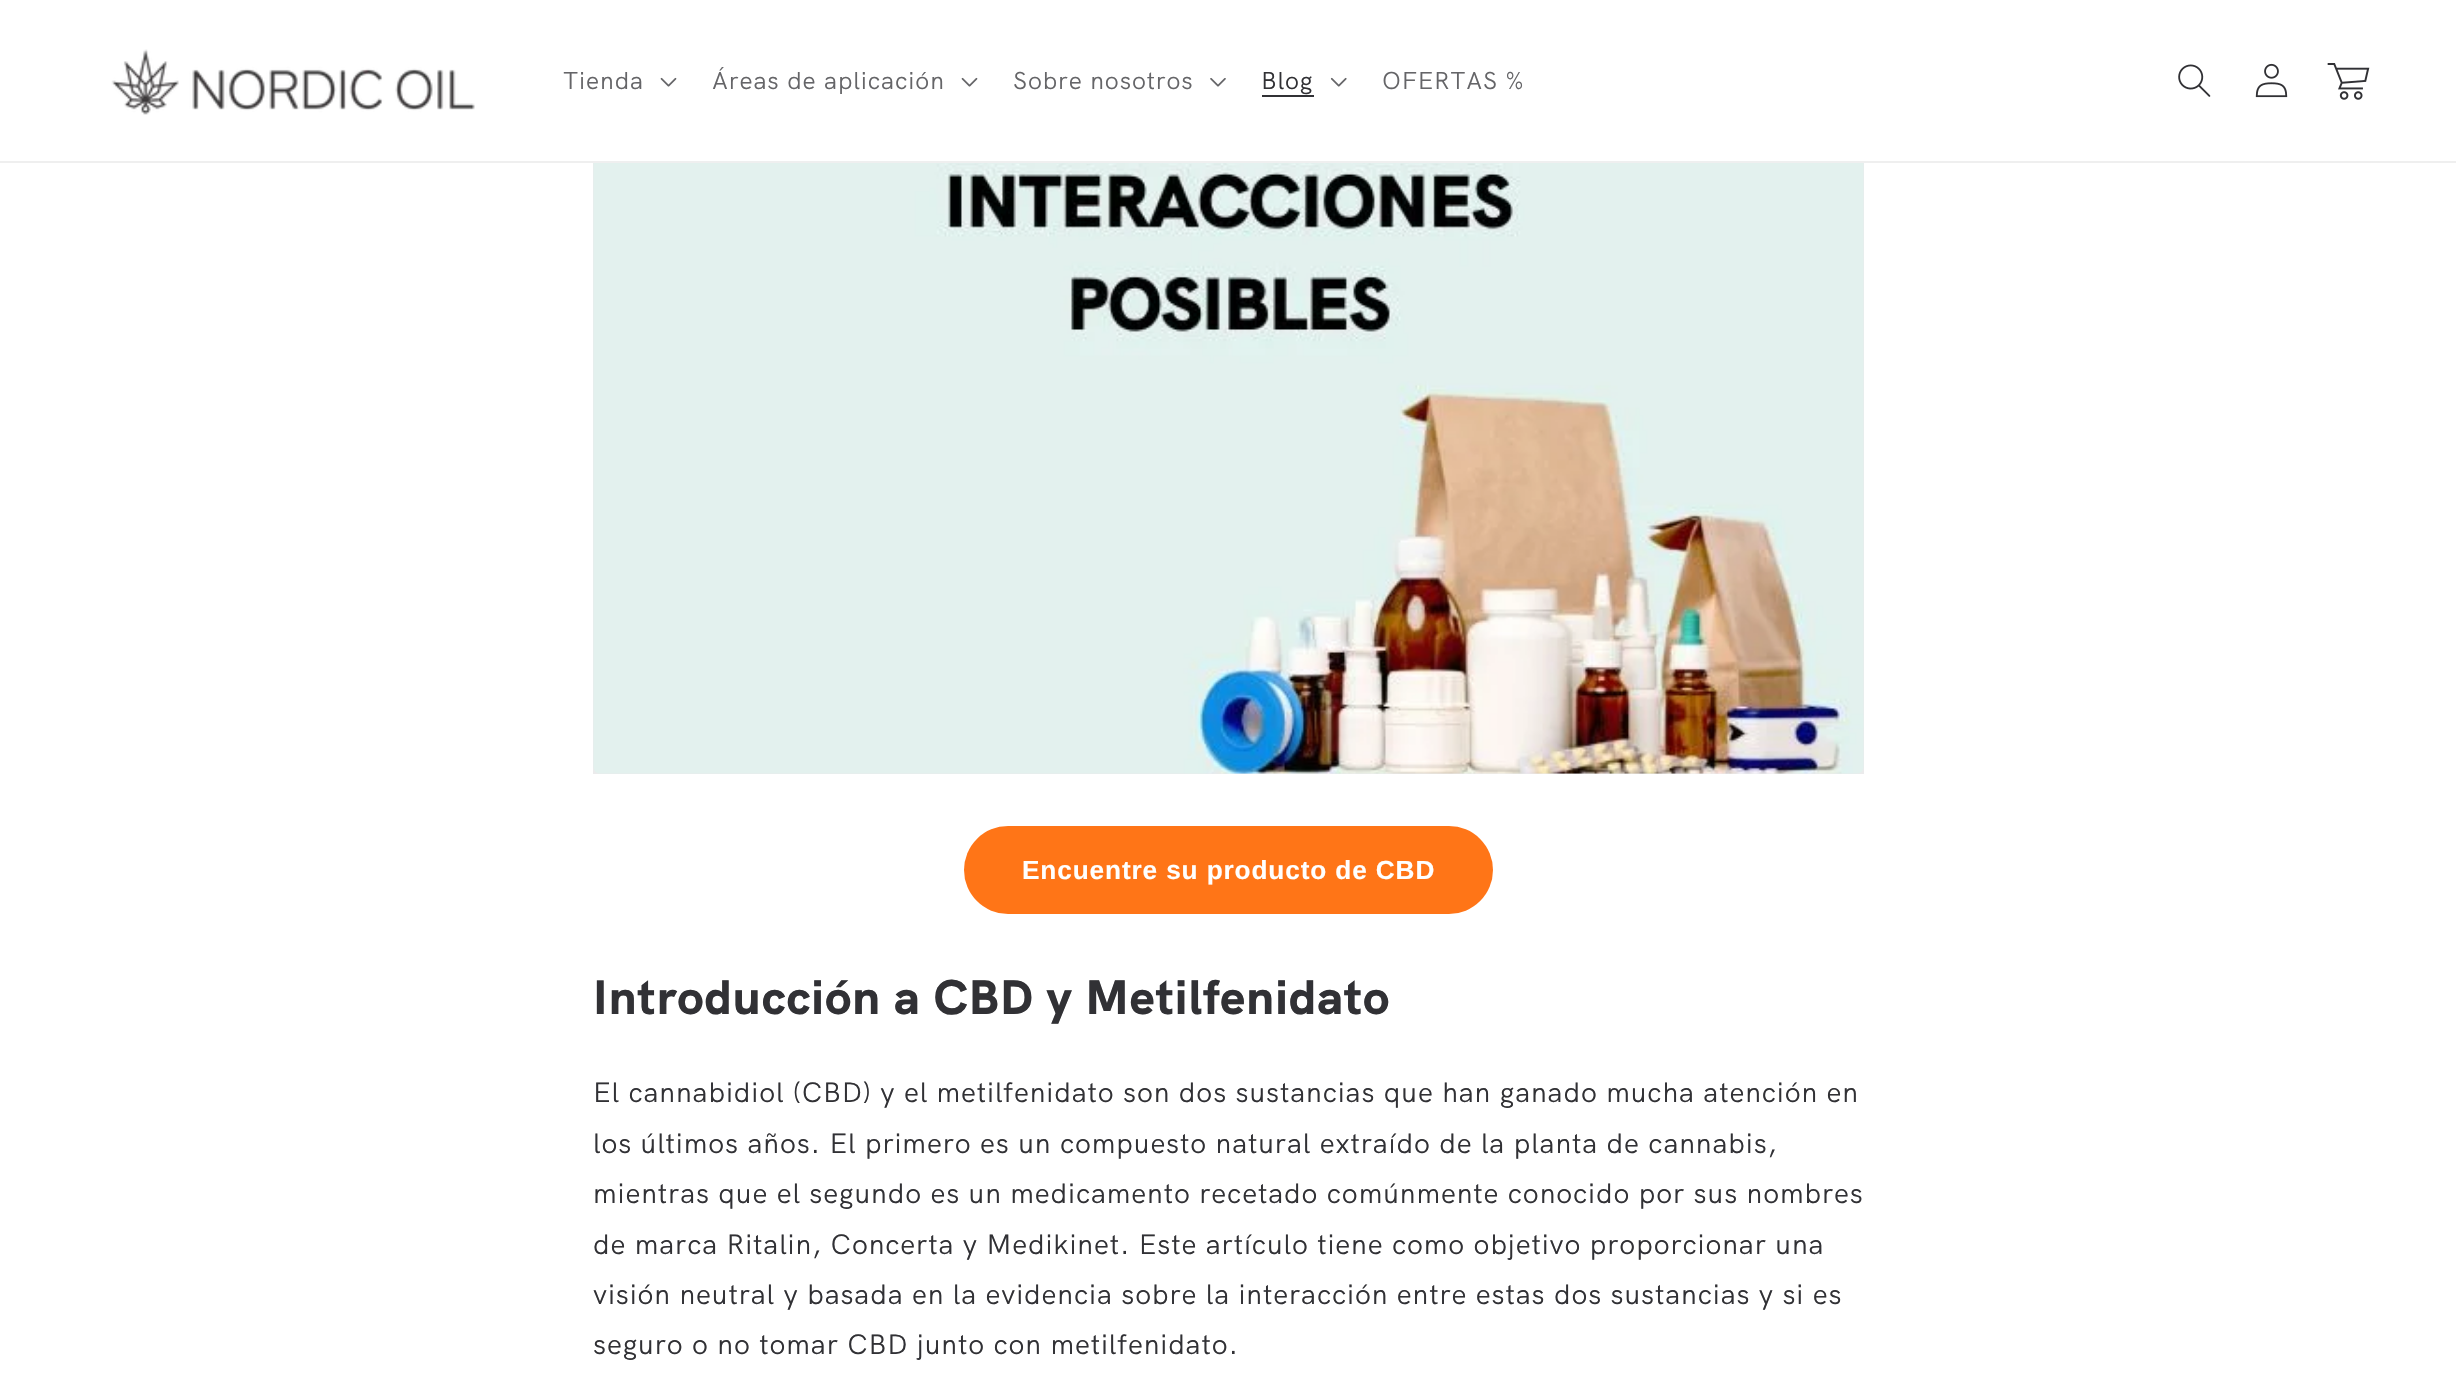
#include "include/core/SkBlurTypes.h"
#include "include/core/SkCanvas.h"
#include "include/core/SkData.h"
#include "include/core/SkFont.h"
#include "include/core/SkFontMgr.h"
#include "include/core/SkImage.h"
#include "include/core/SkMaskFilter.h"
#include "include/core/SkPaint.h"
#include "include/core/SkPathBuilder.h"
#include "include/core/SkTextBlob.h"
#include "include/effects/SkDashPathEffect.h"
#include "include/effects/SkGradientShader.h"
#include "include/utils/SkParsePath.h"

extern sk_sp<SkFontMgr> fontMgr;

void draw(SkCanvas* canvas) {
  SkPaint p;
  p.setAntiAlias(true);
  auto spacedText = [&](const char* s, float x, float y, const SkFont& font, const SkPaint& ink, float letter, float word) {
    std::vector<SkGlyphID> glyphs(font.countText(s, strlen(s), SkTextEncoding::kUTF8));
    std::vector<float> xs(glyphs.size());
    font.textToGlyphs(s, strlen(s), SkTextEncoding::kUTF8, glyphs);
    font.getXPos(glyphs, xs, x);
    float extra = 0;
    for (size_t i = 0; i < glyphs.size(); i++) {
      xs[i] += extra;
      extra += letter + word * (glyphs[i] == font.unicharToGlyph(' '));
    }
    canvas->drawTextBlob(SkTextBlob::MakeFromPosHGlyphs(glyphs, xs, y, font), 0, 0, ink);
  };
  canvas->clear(SK_ColorWHITE);
  p.setColor(SkColorSetRGB(239, 239, 239));
  canvas->drawRect(SkRect::MakeLTRB(0, 161, 2456, 163), p);
  canvas->drawImageRect(SkImages::DeferredFromEncodedData(SkData::MakeFromFileName("images/1.png")), SkRect::MakeLTRB(111, 49, 475, 115), SkSamplingOptions());
  canvas->drawImageRect(SkImages::DeferredFromEncodedData(SkData::MakeFromFileName("images/2.png")), SkRect::MakeLTRB(660, 77, 677, 87), SkSamplingOptions());
  canvas->drawImageRect(SkImages::DeferredFromEncodedData(SkData::MakeFromFileName("images/2.png")), SkRect::MakeLTRB(961, 77, 978, 87), SkSamplingOptions());
  canvas->drawImageRect(SkImages::DeferredFromEncodedData(SkData::MakeFromFileName("images/3.png")), SkRect::MakeLTRB(1210, 78, 1226, 87), SkSamplingOptions());
  p.setColor(SkColorSetRGB(49, 49, 53));
  canvas->drawRect(SkRect::MakeLTRB(1262, 95, 1314, 97), p);
  canvas->drawImageRect(SkImages::DeferredFromEncodedData(SkData::MakeFromFileName("images/4.png")), SkRect::MakeLTRB(1330, 77, 1347, 87), SkSamplingOptions());
  canvas->drawImageRect(SkImages::DeferredFromEncodedData(SkData::MakeFromFileName("images/5.png")), SkRect::MakeLTRB(2178, 64, 2211, 97), SkSamplingOptions());
  canvas->drawImageRect(SkImages::DeferredFromEncodedData(SkData::MakeFromFileName("images/6.png")), SkRect::MakeLTRB(2255, 63, 2288, 98), SkSamplingOptions());
  canvas->drawImageRect(SkImages::DeferredFromEncodedData(SkData::MakeFromFileName("images/7.png")), SkRect::MakeLTRB(2327, 63, 2370, 100), SkSamplingOptions());
  p.setColor(SkColorSetRGB(235, 235, 236));
  canvas->drawRect(SkRect::MakeLTRB(593, 163, 1864, 774), p);
  canvas->drawImageRect(SkImages::DeferredFromEncodedData(SkData::MakeFromFileName("images/8.png")), SkRect::MakeLTRB(593, 163, 1864, 774), SkSamplingOptions());
  p.setColor(SkColorSetRGB(255, 117, 23));
  canvas->drawRoundRect(SkRect::MakeLTRB(964, 826, 1493, 914), 44, 44, p);
  SkFont font1(fontMgr->matchFamilyStyle("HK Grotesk", SkFontStyle::Normal()), 24.5f);
  font1.setSubpixel(true);
  p.setColor(SkColorSetRGB(101, 101, 104));
  spacedText("Tienda", 563, 89, font1, p, 0.85f, 0);
  spacedText("Áreas de aplicación", 712, 89, font1, p, 0.85f, 0);
  spacedText("Sobre nosotros", 1013, 89, font1, p, 0.85f, 0);
  p.setColor(SkColorSetRGB(49, 49, 53));
  spacedText("Blog", 1261, 89, font1, p, 0.85f, 0);
  p.setColor(SkColorSetRGB(101, 101, 104));
  spacedText("OFERTAS %", 1382, 89, font1, p, 0.75f, 0);
  SkFont font2(fontMgr->matchFamilyStyle("Liberation Sans", SkFontStyle::Bold()), 26.25f);
  font2.setSubpixel(true);
  p.setColor(SK_ColorWHITE);
  spacedText("Encuentre su producto de CBD", 1022, 879, font2, p, 0.85f, 0);
  SkFont font3(fontMgr->matchFamilyStyle("HK Grotesk", SkFontStyle(800, SkFontStyle::kNormal_Width, SkFontStyle::kUpright_Slant)), 48.25f);
  font3.setSubpixel(true);
  p.setColor(SkColorSetRGB(49, 49, 53));
  spacedText("Introducción a CBD y Metilfenidato", 593, 1014, font3, p, 1.2f, 0);
  SkFont font4(fontMgr->matchFamilyStyle("HK Grotesk", SkFontStyle::Normal()), 28);
  font4.setSubpixel(true);
  spacedText("El cannabidiol (CBD) y el metilfenidato son dos sustancias que han ganado mucha atención en", 593, 1102, font4, p, 0.85f, 0);
  spacedText("los últimos años. El primero es un compuesto natural extraído de la planta de cannabis,", 593, 1153, font4, p, 0.85f, 0);
  spacedText("mientras que el segundo es un medicamento recetado comúnmente conocido por sus nombres", 593, 1203, font4, p, 0.85f, 0);
  spacedText("de marca Ritalin, Concerta y Medikinet. Este artículo tiene como objetivo proporcionar una", 593, 1254, font4, p, 0.85f, 0);
  spacedText("visión neutral y basada en la evidencia sobre la interacción entre estas dos sustancias y si es", 593, 1304, font4, p, 0.85f, 0);
  spacedText("seguro o no tomar CBD junto con metilfenidato.", 593, 1354, font4, p, 0.85f, 0);
}
